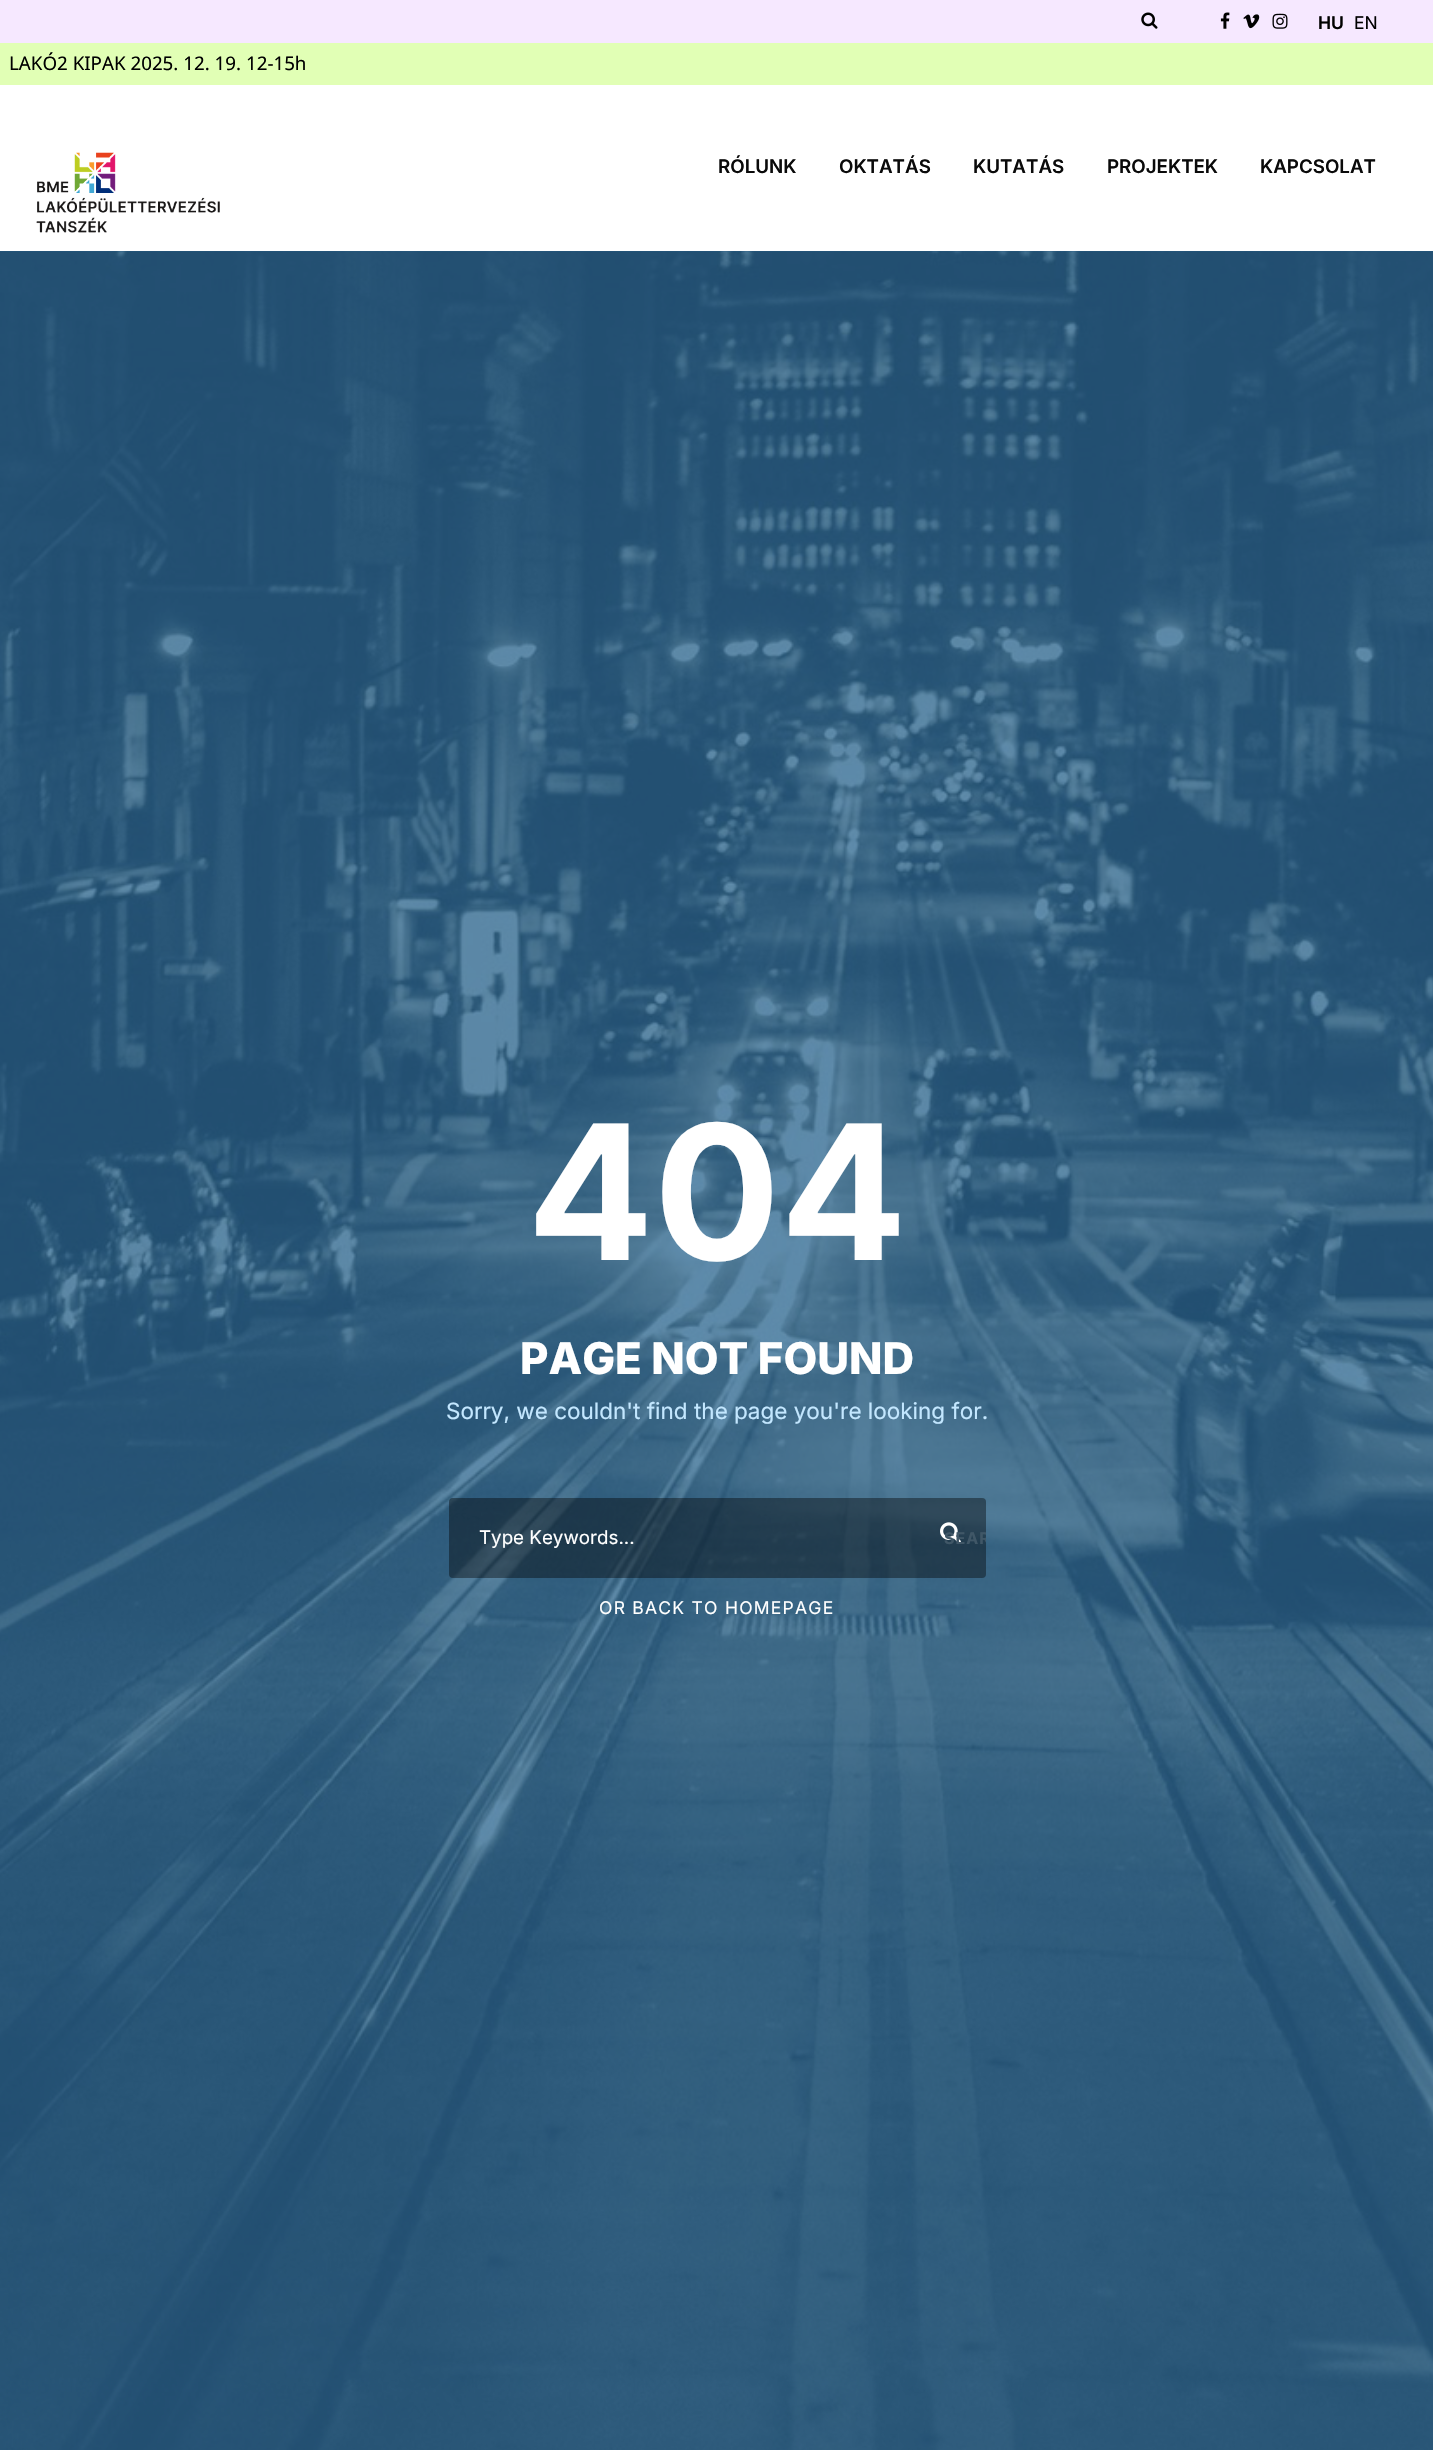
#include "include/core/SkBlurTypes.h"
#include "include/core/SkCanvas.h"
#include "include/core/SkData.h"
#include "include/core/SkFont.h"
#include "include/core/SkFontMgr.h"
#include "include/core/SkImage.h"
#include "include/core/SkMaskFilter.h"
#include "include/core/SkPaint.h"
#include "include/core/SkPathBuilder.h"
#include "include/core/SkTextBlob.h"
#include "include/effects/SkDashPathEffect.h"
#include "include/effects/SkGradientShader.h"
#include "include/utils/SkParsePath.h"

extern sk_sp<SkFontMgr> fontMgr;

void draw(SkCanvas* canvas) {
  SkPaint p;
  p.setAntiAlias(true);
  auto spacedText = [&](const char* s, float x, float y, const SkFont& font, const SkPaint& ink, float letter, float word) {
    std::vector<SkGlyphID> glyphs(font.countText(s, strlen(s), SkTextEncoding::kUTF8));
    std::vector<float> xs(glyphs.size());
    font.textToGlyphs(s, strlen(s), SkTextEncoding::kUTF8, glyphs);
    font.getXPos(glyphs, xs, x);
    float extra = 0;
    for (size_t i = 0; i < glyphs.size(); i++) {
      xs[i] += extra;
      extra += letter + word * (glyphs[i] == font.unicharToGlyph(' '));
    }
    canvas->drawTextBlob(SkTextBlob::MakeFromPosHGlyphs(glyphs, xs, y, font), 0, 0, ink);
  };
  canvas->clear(SK_ColorWHITE);
  p.setColor(SkColorSetRGB(246, 232, 255));
  canvas->drawRect(SkRect::MakeLTRB(0, 0, 1433, 43), p);
  canvas->drawImageRect(SkImages::DeferredFromEncodedData(SkData::MakeFromFileName("images/1.png")), SkRect::MakeLTRB(1141, 12, 1158, 29), SkSamplingOptions());
  canvas->drawImageRect(SkImages::DeferredFromEncodedData(SkData::MakeFromFileName("images/2.png")), SkRect::MakeLTRB(1220, 12, 1230, 29), SkSamplingOptions());
  canvas->drawImageRect(SkImages::DeferredFromEncodedData(SkData::MakeFromFileName("images/3.png")), SkRect::MakeLTRB(1243, 14, 1260, 29), SkSamplingOptions());
  canvas->drawImageRect(SkImages::DeferredFromEncodedData(SkData::MakeFromFileName("images/4.png")), SkRect::MakeLTRB(1272, 13, 1288, 29), SkSamplingOptions());
  p.setColor(SkColorSetRGB(225, 255, 181));
  canvas->drawRect(SkRect::MakeLTRB(0, 43, 1433, 85), p);
  canvas->drawImageRect(SkImages::DeferredFromEncodedData(SkData::MakeFromFileName("images/5.png")), SkRect::MakeLTRB(36, 152, 220, 233), SkSamplingOptions());
  p.setColor(SkColorSetRGB(35, 97, 142));
  canvas->drawRect(SkRect::MakeLTRB(0, 251, 1433, 2450), p);
  canvas->drawImageRect(SkImages::DeferredFromEncodedData(SkData::MakeFromFileName("images/6.png")), SkRect::MakeLTRB(0, 251, 1433, 2450), SkSamplingOptions());
  p.setColor(SkColorSetARGB(102, 0, 0, 0));
  canvas->drawRoundRect(SkRect::MakeLTRB(449, 1498, 986, 1578), 4, 4, p);
  canvas->drawImageRect(SkImages::DeferredFromEncodedData(SkData::MakeFromFileName("images/7.png")), SkRect::MakeLTRB(940, 1522, 961, 1544), SkSamplingOptions());
  SkFont font1(fontMgr->matchFamilyStyle("Inter", SkFontStyle(600, SkFontStyle::kNormal_Width, SkFontStyle::kUpright_Slant)), 17.5f);
  font1.setSubpixel(true);
  p.setColor(SK_ColorBLACK);
  canvas->drawString("HU", 1318, 29, font1, p);
  SkFont font2(fontMgr->matchFamilyStyle("Inter", SkFontStyle::Normal()), 17.5f);
  font2.setSubpixel(true);
  canvas->drawString("EN", 1354, 29, font2, p);
  SkFont font3(fontMgr->matchFamilyStyle("Noto Sans", SkFontStyle::Normal()), 18.75f);
  font3.setSubpixel(true);
  canvas->drawString("LAKÓ2 KIPAK 2025. 12. 19. 12-15h", 9, 70, font3, p);
  SkFont font4(fontMgr->matchFamilyStyle("Inter", SkFontStyle(600, SkFontStyle::kNormal_Width, SkFontStyle::kUpright_Slant)), 18.75f);
  font4.setSubpixel(true);
  p.setColor(SkColorSetRGB(10, 10, 10));
  canvas->drawString("RÓLUNK", 718, 173, font4, p);
  canvas->drawString("OKTATÁS", 839, 173, font4, p);
  canvas->drawString("KUTATÁS", 973, 173, font4, p);
  canvas->drawString("PROJEKTEK", 1107, 173, font4, p);
  canvas->drawString("KAPCSOLAT", 1260, 173, font4, p);
  SkFont font5(fontMgr->matchFamilyStyle("Inter", SkFontStyle::Bold()), 187.5f);
  font5.setSubpixel(true);
  p.setColor(SK_ColorWHITE);
  canvas->drawString("404", 527, 1260, font5, p);
  SkFont font6(fontMgr->matchFamilyStyle("Inter", SkFontStyle(800, SkFontStyle::kNormal_Width, SkFontStyle::kUpright_Slant)), 43.75f);
  font6.setSubpixel(true);
  canvas->drawString("PAGE NOT FOUND", 520, 1374, font6, p);
  SkFont font7(fontMgr->matchFamilyStyle("Inter", SkFontStyle::Normal()), 22.5f);
  font7.setSubpixel(true);
  p.setColor(SkColorSetRGB(195, 231, 255));
  canvas->drawString("Sorry, we couldn't find the page you're looking for.", 446, 1419, font7, p);
  SkFont font8(fontMgr->matchFamilyStyle("Inter", SkFontStyle::Normal()), 18.75f);
  font8.setSubpixel(true);
  p.setColor(SK_ColorWHITE);
  canvas->drawString("Type Keywords...", 479, 1544, font8, p);
  canvas->save();
  canvas->clipRect(SkRect::MakeLTRB(904, 1498, 986, 1578));
  SkFont font9(fontMgr->matchFamilyStyle("Inter", SkFontStyle::Bold()), 16);
  font9.setSubpixel(true);
  p.setColor(SkColorSetRGB(64, 87, 103));
  spacedText("SEAR", 944, 1544, font9, p, 1, 0);
  canvas->restore();
  p.setColor(SK_ColorWHITE);
  spacedText("OR BACK TO HOMEPAGE", 599, 1614, font2, p, 1.25f, 0);
}
